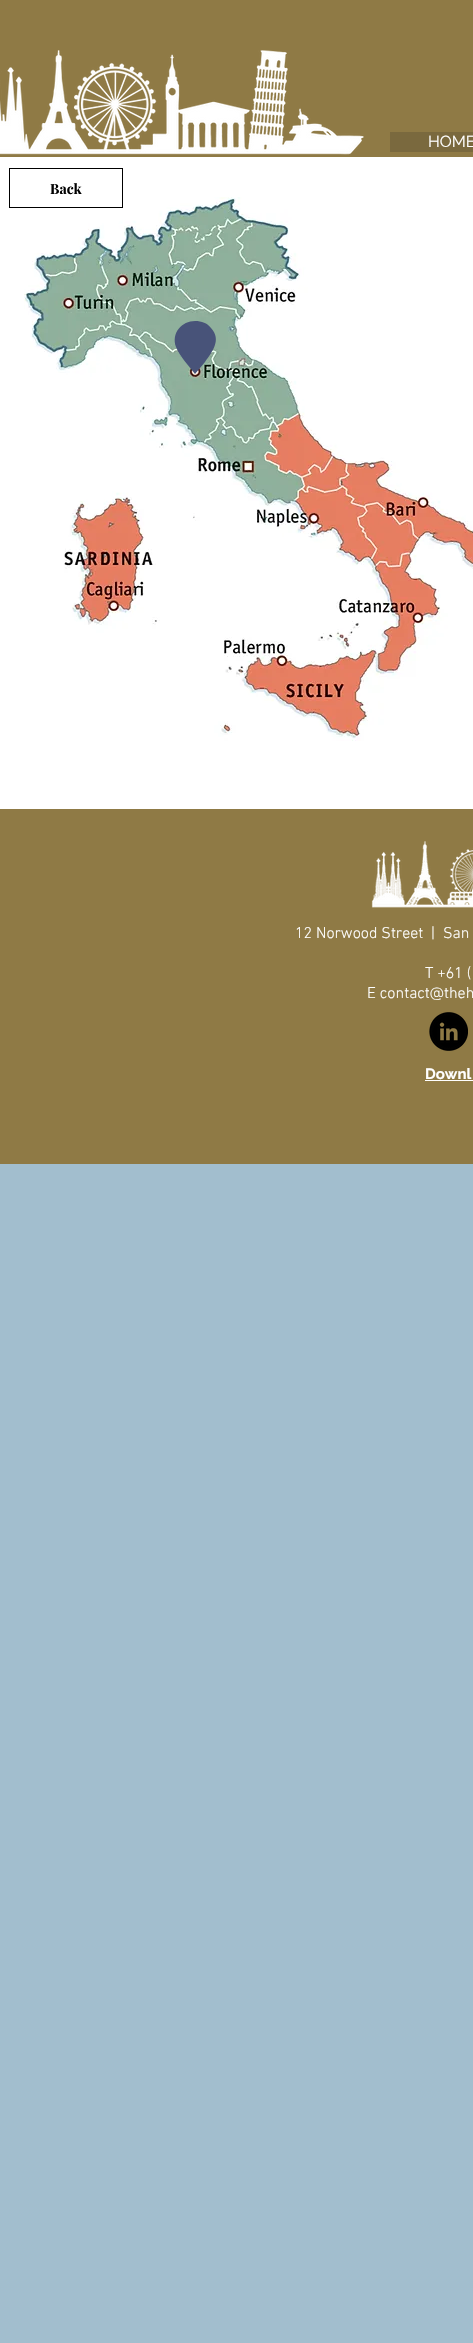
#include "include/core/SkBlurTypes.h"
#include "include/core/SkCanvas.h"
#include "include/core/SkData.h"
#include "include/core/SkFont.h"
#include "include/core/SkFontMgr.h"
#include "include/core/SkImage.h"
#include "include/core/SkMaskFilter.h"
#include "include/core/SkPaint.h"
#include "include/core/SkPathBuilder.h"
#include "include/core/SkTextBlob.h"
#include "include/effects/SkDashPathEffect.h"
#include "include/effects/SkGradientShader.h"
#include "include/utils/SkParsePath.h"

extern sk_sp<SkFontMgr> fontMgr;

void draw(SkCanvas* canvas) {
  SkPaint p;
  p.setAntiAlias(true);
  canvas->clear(SkColorSetRGB(162, 190, 206));
  p.setColor(SkColorSetRGB(143, 122, 69));
  canvas->drawRect(SkRect::MakeLTRB(0, 0, 473, 157), p);
  canvas->drawImageRect(SkImages::DeferredFromEncodedData(SkData::MakeFromFileName("images/1.png")), SkRect::MakeLTRB(0, 50, 364, 155), SkSamplingOptions());
  p.setColor(SkColorSetRGB(122, 105, 62));
  canvas->drawRect(SkRect::MakeLTRB(390, 132, 473, 152), p);
  p.setColor(SK_ColorWHITE);
  canvas->drawRect(SkRect::MakeLTRB(0, 157, 473, 809), p);
  canvas->drawImageRect(SkImages::DeferredFromEncodedData(SkData::MakeFromFileName("images/2.png")), SkRect::MakeLTRB(24, 197, 473, 741), SkSamplingOptions());
  p.setStyle(SkPaint::kStroke_Style);
  p.setStrokeWidth(1);
  p.setColor(SK_ColorBLACK);
  canvas->drawRect(SkRect::MakeLTRB(9.5f, 168.5f, 122.5f, 207.5f), p);
  p.setStyle(SkPaint::kFill_Style);
  p.setColor(SkColorSetRGB(72, 83, 121));
  canvas->drawPath(SkPathBuilder().moveTo(195, 321).cubicTo(182, 321, 171, 333, 176, 347).cubicTo(180, 357, 189, 366, 195, 374).lineTo(205, 362).cubicTo(212, 352, 222, 340, 211, 328).cubicTo(207, 323, 202, 321, 195, 321).close().detach(), p);
  p.setColor(SkColorSetRGB(143, 122, 69));
  canvas->drawRect(SkRect::MakeLTRB(0, 809, 473, 1164), p);
  canvas->drawImageRect(SkImages::DeferredFromEncodedData(SkData::MakeFromFileName("images/3.png")), SkRect::MakeLTRB(371, 841, 473, 910), SkSamplingOptions());
  p.setColor(SK_ColorWHITE);
  canvas->drawRect(SkRect::MakeLTRB(425, 1080, 473, 1081), p);
  canvas->drawImageRect(SkImages::DeferredFromEncodedData(SkData::MakeFromFileName("images/4.png")), SkRect::MakeLTRB(429, 1012, 468, 1051), SkSamplingOptions());
  SkFont font1(fontMgr->matchFamilyStyle("Raleway", SkFontStyle::Normal()), 16);
  font1.setSubpixel(true);
  canvas->drawString("HOME", 428, 147, font1, p);
  SkFont font2(fontMgr->matchFamilyStyle("Playfair Display", SkFontStyle::Bold()), 14);
  font2.setSubpixel(true);
  p.setColor(SK_ColorBLACK);
  canvas->drawString("Back", 50, 194, font2, p);
  SkFont font3(fontMgr->matchFamilyStyle("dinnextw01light", SkFontStyle(300, SkFontStyle::kNormal_Width, SkFontStyle::kUpright_Slant)), 16);
  font3.setSubpixel(true);
  p.setColor(SK_ColorWHITE);
  canvas->drawString("12 Norwood Street  |  San", 295, 938, font3, p);
  canvas->drawString("T +61 (", 425, 978, font3, p);
  canvas->drawString("E contact@theh", 367, 998, font3, p);
  SkFont font4(fontMgr->matchFamilyStyle("Raleway", SkFontStyle::Bold()), 15);
  font4.setSubpixel(true);
  canvas->drawString("Downl", 425, 1079, font4, p);
}
